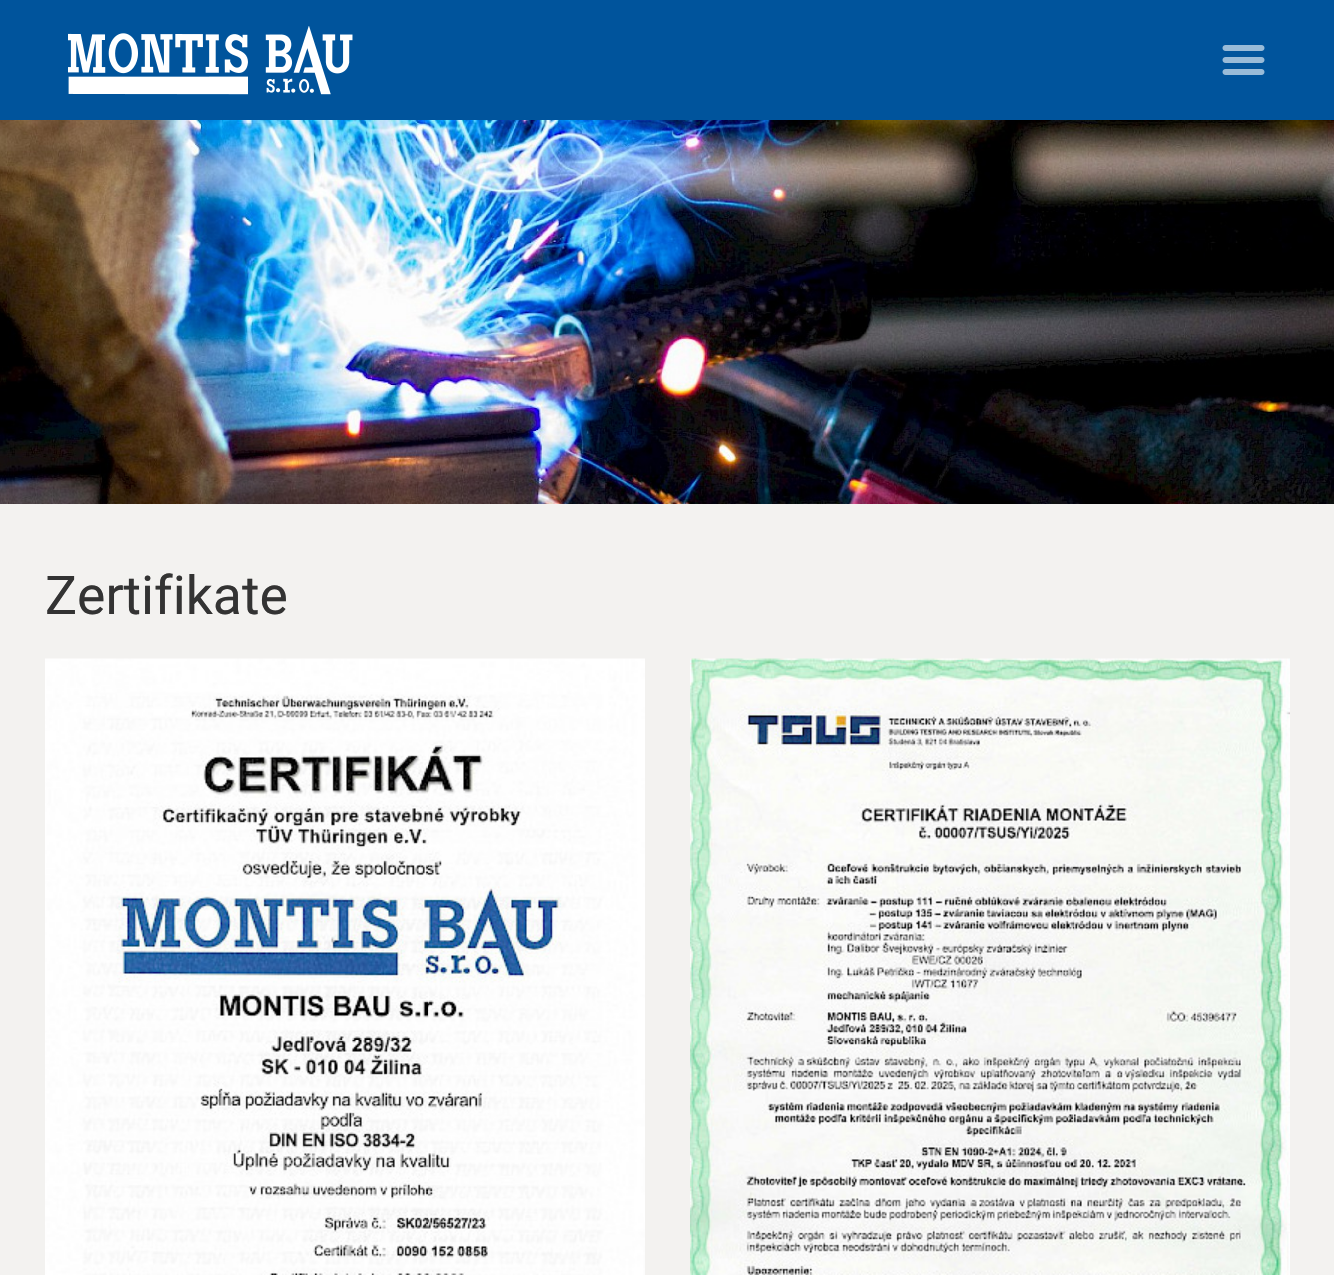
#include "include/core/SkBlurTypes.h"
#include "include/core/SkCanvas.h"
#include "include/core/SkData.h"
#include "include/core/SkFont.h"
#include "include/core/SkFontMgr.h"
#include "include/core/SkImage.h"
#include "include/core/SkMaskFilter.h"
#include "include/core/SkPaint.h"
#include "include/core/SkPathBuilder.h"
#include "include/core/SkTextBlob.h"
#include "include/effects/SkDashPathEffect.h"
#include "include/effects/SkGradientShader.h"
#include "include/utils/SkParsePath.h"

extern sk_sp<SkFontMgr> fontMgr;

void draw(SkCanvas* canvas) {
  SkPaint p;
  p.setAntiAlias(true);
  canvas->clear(SkColorSetRGB(0, 84, 156));
  canvas->drawImageRect(SkImages::DeferredFromEncodedData(SkData::MakeFromFileName("images/1.png")), SkRect::MakeLTRB(68, 26, 353, 95), SkSamplingOptions());
  canvas->drawImageRect(SkImages::DeferredFromEncodedData(SkData::MakeFromFileName("images/2.png")), SkRect::MakeLTRB(1222, 45, 1265, 75), SkSamplingOptions());
  canvas->drawImageRect(SkImages::DeferredFromEncodedData(SkData::MakeFromFileName("images/3.png")), SkRect::MakeLTRB(0, 120, 1334, 504), SkSamplingOptions());
  p.setColor(SkColorSetRGB(243, 242, 240));
  canvas->drawRect(SkRect::MakeLTRB(0, 504, 1334, 1275), p);
  canvas->drawImageRect(SkImages::DeferredFromEncodedData(SkData::MakeFromFileName("images/4.png")), SkRect::MakeLTRB(45, 658, 645, 1275), SkSamplingOptions());
  canvas->drawImageRect(SkImages::DeferredFromEncodedData(SkData::MakeFromFileName("images/5.png")), SkRect::MakeLTRB(690, 658, 1290, 1275), SkSamplingOptions());
  SkFont font1(fontMgr->matchFamilyStyle("Roboto", SkFontStyle::Normal()), 53.5f);
  font1.setSubpixel(true);
  p.setColor(SkColorSetRGB(51, 51, 51));
  canvas->drawString("Zertifikate", 45, 614, font1, p);
}
